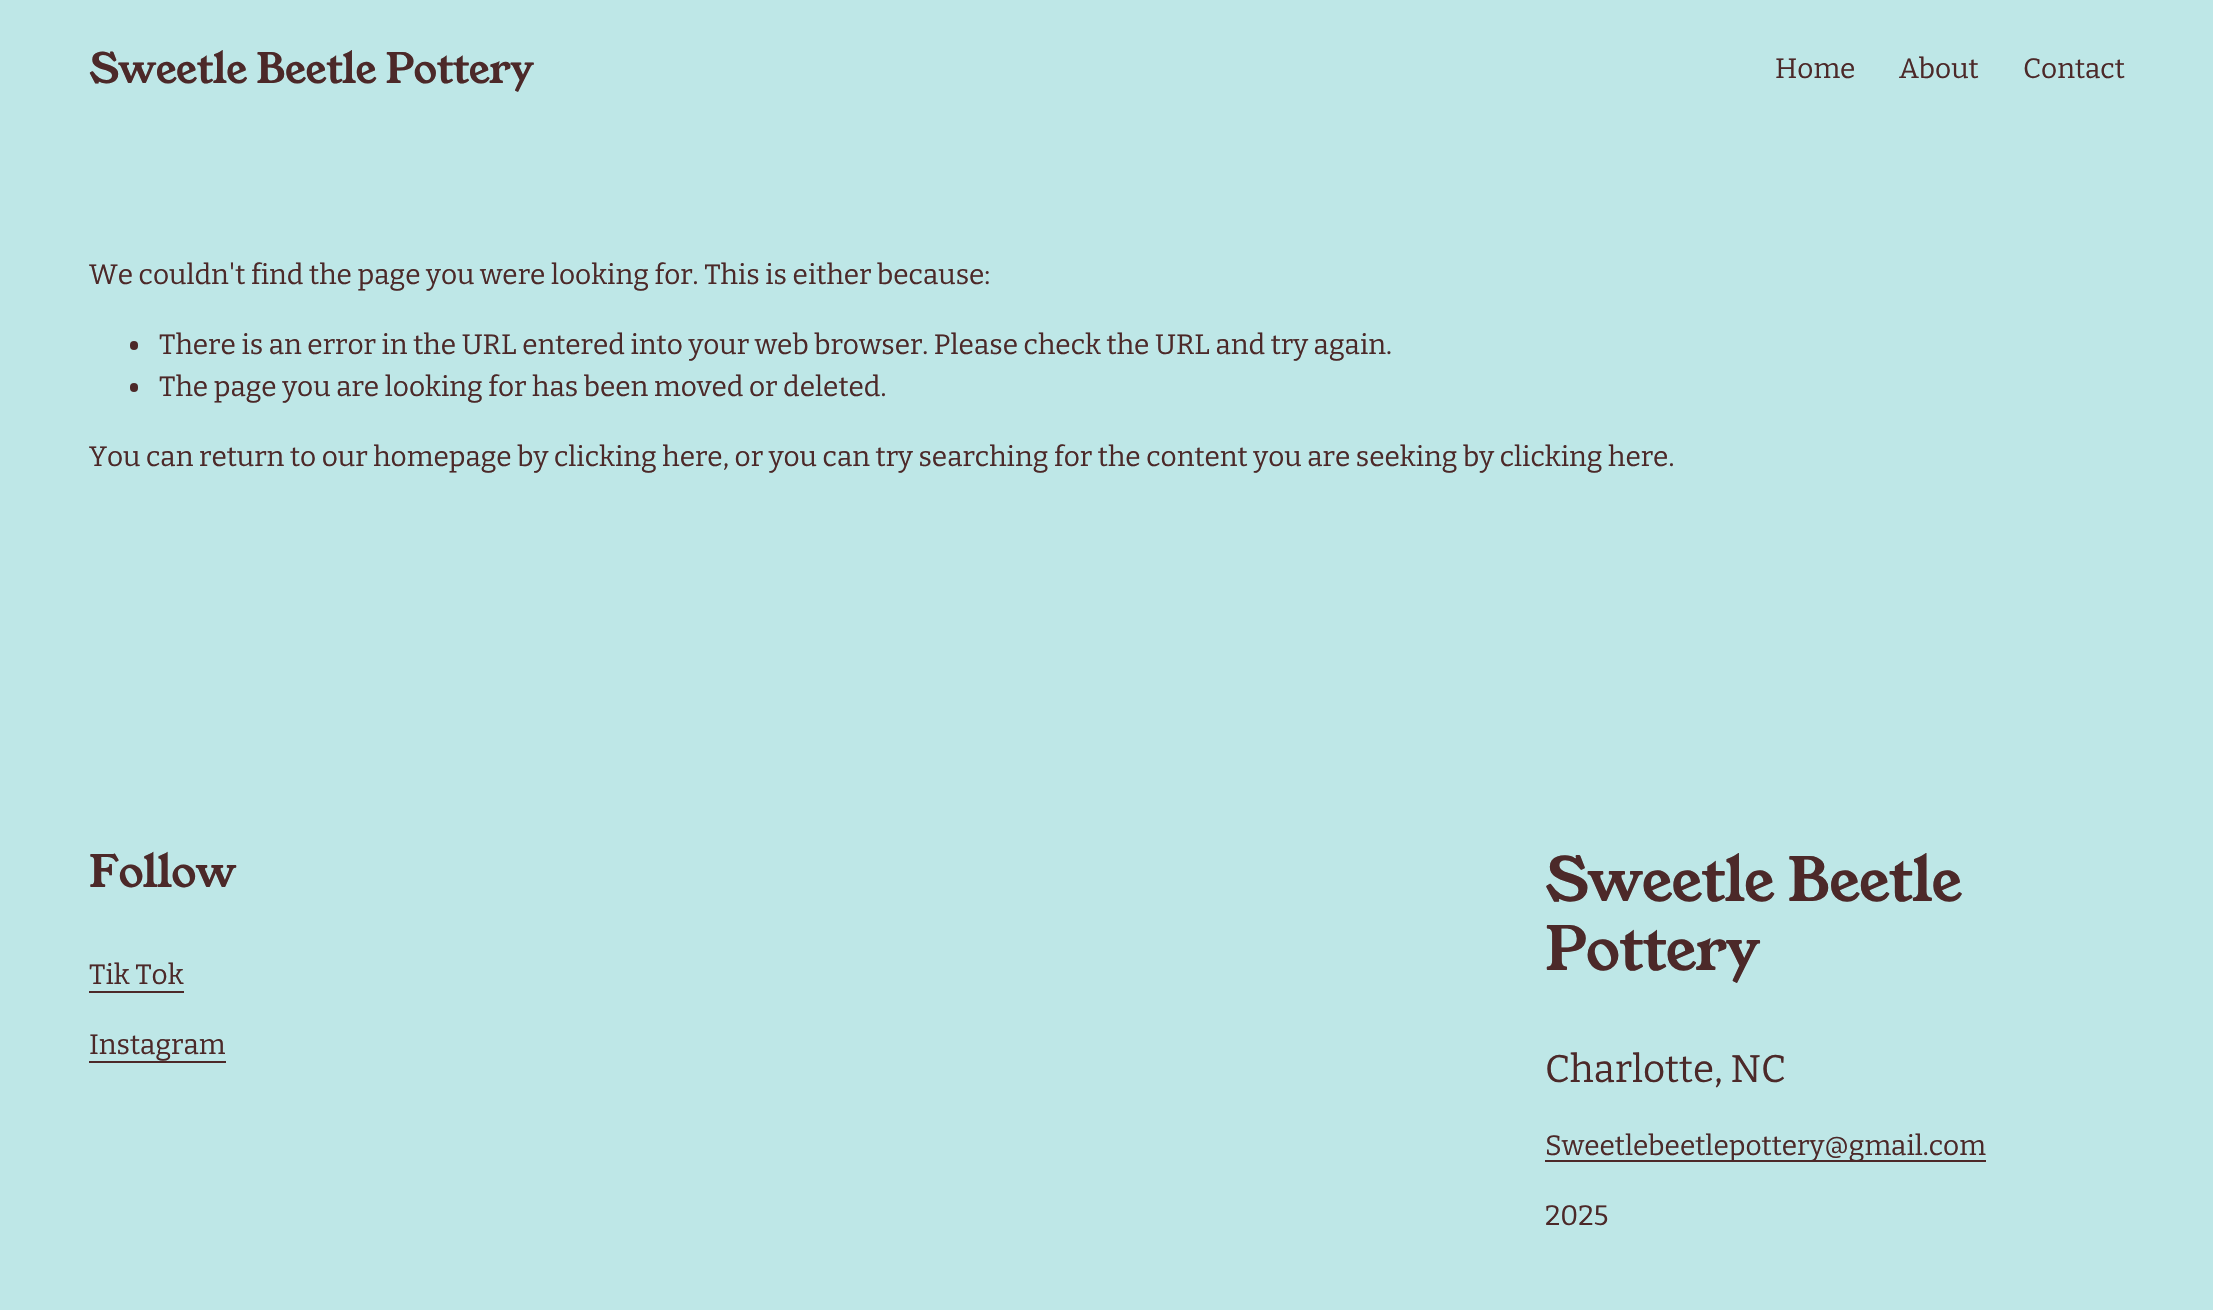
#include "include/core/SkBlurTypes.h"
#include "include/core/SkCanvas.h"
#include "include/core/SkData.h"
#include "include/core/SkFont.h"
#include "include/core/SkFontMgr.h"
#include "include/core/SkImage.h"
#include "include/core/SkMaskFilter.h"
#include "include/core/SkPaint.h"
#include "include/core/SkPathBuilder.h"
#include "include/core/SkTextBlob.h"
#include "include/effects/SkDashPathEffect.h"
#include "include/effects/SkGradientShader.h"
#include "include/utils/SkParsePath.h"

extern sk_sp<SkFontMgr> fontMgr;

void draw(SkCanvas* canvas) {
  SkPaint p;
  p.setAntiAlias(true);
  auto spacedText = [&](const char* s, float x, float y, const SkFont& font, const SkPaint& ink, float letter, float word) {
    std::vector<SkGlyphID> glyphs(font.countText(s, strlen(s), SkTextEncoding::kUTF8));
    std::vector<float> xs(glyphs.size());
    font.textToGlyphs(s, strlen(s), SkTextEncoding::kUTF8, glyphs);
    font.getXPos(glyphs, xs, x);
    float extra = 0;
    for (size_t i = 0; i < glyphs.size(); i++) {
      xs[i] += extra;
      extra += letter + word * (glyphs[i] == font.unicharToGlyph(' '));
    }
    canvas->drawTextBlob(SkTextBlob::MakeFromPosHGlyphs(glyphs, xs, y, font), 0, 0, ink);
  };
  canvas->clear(SkColorSetRGB(190, 231, 231));
  p.setColor(SkColorSetRGB(76, 41, 41));
  canvas->drawRoundRect(SkRect::MakeLTRB(130, 341, 138, 350), 4, 4, p);
  canvas->drawRoundRect(SkRect::MakeLTRB(130, 383, 138, 392), 4, 4, p);
  canvas->drawRect(SkRect::MakeLTRB(89, 991, 184, 993), p);
  canvas->drawRect(SkRect::MakeLTRB(89, 1061, 226, 1063), p);
  canvas->drawRect(SkRect::MakeLTRB(1545, 1160, 1986, 1162), p);
  SkFont font1(fontMgr->matchFamilyStyle("Young Serif", SkFontStyle::Normal()), 41.25f);
  font1.setSubpixel(true);
  spacedText("Sweetle Beetle Pottery", 89, 83, font1, p, -0.8f, 0);
  SkFont font2(fontMgr->matchFamilyStyle("Bitter", SkFontStyle::Normal()), 28);
  font2.setSubpixel(true);
  canvas->drawString("Home", 1775, 78, font2, p);
  canvas->drawString("About", 1899, 78, font2, p);
  canvas->drawString("Contact", 2023, 78, font2, p);
  canvas->drawString("We couldn't find the page you were looking for. This is either because:", 89, 284, font2, p);
  canvas->drawString("There is an error in the URL entered into your web browser. Please check the URL and try again.", 159, 354, font2, p);
  canvas->drawString("The page you are looking for has been moved or deleted.", 159, 396, font2, p);
  canvas->drawString("You can return to our homepage by clicking here, or you can try searching for the content you are seeking by clicking here.", 89, 466, font2, p);
  SkFont font3(fontMgr->matchFamilyStyle("Young Serif", SkFontStyle::Normal()), 44);
  font3.setSubpixel(true);
  spacedText("Follow", 89, 887, font3, p, -1, 0);
  canvas->drawString("Tik Tok", 89, 984, font2, p);
  canvas->drawString("Instagram", 89, 1054, font2, p);
  SkFont font4(fontMgr->matchFamilyStyle("Young Serif", SkFontStyle::Normal()), 60);
  font4.setSubpixel(true);
  spacedText("Sweetle Beetle", 1545, 901, font4, p, -1.25f, 0);
  spacedText("Pottery", 1545, 970, font4, p, -1.25f, 0);
  SkFont font5(fontMgr->matchFamilyStyle("Bitter", SkFontStyle::Normal()), 38.5f);
  font5.setSubpixel(true);
  canvas->drawString("Charlotte, NC", 1545, 1082, font5, p);
  canvas->drawString("Sweetlebeetlepottery@gmail.com", 1545, 1155, font2, p);
  canvas->drawString("2025", 1545, 1225, font2, p);
}
